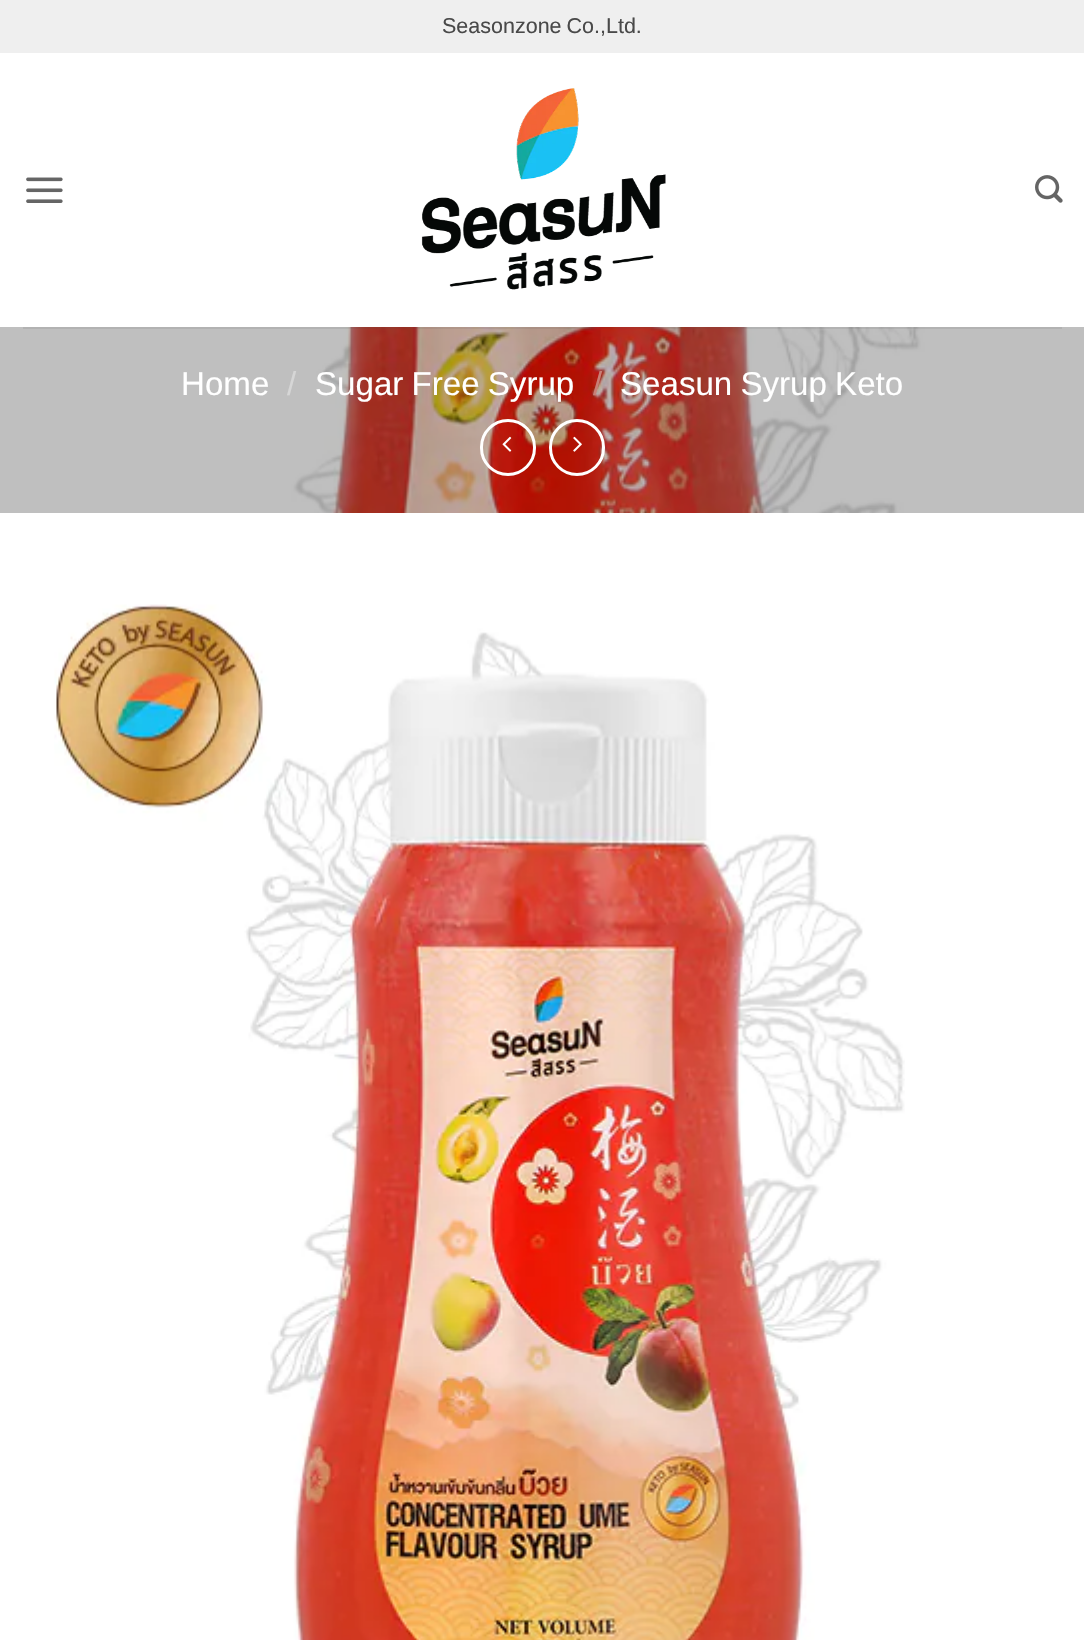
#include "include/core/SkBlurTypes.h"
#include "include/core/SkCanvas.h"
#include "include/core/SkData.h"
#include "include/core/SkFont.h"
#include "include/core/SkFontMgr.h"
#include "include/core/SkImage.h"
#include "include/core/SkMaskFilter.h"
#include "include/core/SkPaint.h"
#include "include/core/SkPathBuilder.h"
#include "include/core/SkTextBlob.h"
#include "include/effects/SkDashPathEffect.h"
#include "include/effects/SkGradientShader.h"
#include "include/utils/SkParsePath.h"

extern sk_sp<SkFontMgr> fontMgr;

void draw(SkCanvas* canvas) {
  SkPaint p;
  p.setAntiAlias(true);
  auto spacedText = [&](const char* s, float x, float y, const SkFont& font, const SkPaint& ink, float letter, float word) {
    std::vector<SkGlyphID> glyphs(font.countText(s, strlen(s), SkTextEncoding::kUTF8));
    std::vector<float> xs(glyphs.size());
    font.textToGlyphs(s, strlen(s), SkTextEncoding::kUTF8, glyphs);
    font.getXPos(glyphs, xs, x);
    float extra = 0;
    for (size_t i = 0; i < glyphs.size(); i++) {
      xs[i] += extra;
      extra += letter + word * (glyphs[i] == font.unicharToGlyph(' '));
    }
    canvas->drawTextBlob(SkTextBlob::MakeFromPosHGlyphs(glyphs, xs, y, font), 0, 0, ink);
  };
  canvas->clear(SK_ColorWHITE);
  p.setColor(SkColorSetRGB(239, 239, 239));
  canvas->drawRect(SkRect::MakeLTRB(0, 0, 1084, 53), p);
  canvas->drawImageRect(SkImages::DeferredFromEncodedData(SkData::MakeFromFileName("images/1.png")), SkRect::MakeLTRB(26, 177, 63, 203), SkSamplingOptions());
  canvas->drawImageRect(SkImages::DeferredFromEncodedData(SkData::MakeFromFileName("images/2.png")), SkRect::MakeLTRB(421, 88, 666, 290), SkSamplingOptions());
  canvas->drawImageRect(SkImages::DeferredFromEncodedData(SkData::MakeFromFileName("images/3.png")), SkRect::MakeLTRB(1035, 175, 1063, 203), SkSamplingOptions());
  canvas->drawImageRect(SkImages::DeferredFromEncodedData(SkData::MakeFromFileName("images/4.png")), SkRect::MakeLTRB(0, 327, 1084, 513), SkSamplingOptions());
  p.setColor(SkColorSetARGB(26, 73, 73, 73));
  canvas->drawRect(SkRect::MakeLTRB(23, 327, 1062, 329), p);
  p.setStyle(SkPaint::kStroke_Style);
  p.setStrokeWidth(3);
  p.setColor(SK_ColorWHITE);
  canvas->drawRoundRect(SkRect::MakeLTRB(481.5f, 420.5f, 534.5f, 474.5f), 26.5f, 26.5f, p);
  canvas->drawImageRect(SkImages::DeferredFromEncodedData(SkData::MakeFromFileName("images/5.png")), SkRect::MakeLTRB(502, 436, 512, 452), SkSamplingOptions());
  canvas->drawRoundRect(SkRect::MakeLTRB(550.5f, 420.5f, 603.5f, 474.5f), 26.5f, 26.5f, p);
  canvas->drawImageRect(SkImages::DeferredFromEncodedData(SkData::MakeFromFileName("images/6.png")), SkRect::MakeLTRB(573, 436, 582, 452), SkSamplingOptions());
  canvas->drawImageRect(SkImages::DeferredFromEncodedData(SkData::MakeFromFileName("images/7.png")), SkRect::MakeLTRB(54, 604, 905, 1640), SkSamplingOptions());
  SkFont font1(fontMgr->matchFamilyStyle("Liberation Sans", SkFontStyle::Normal()), 21.5f);
  font1.setSubpixel(true);
  p.setStyle(SkPaint::kFill_Style);
  p.setColor(SkColorSetRGB(73, 73, 73));
  spacedText("Seasonzone Co.,Ltd.", 442, 33, font1, p, 0, -1);
  SkFont font2(fontMgr->matchFamilyStyle("Liberation Sans", SkFontStyle::Normal()), 33.1f);
  font2.setSubpixel(true);
  p.setColor(SK_ColorWHITE);
  canvas->drawString("Home", 181, 395, font2, p);
  p.setColor(SkColorSetRGB(214, 214, 214));
  canvas->drawString("/", 287, 395, font2, p);
  p.setColor(SK_ColorWHITE);
  spacedText("Sugar Free Syrup", 315, 395, font2, p, 0, -1);
  p.setColor(SkColorSetRGB(201, 128, 119));
  canvas->drawString("/", 593, 395, font2, p);
  p.setColor(SK_ColorWHITE);
  spacedText("Seasun Syrup Keto", 620, 395, font2, p, 0, -1);
}
